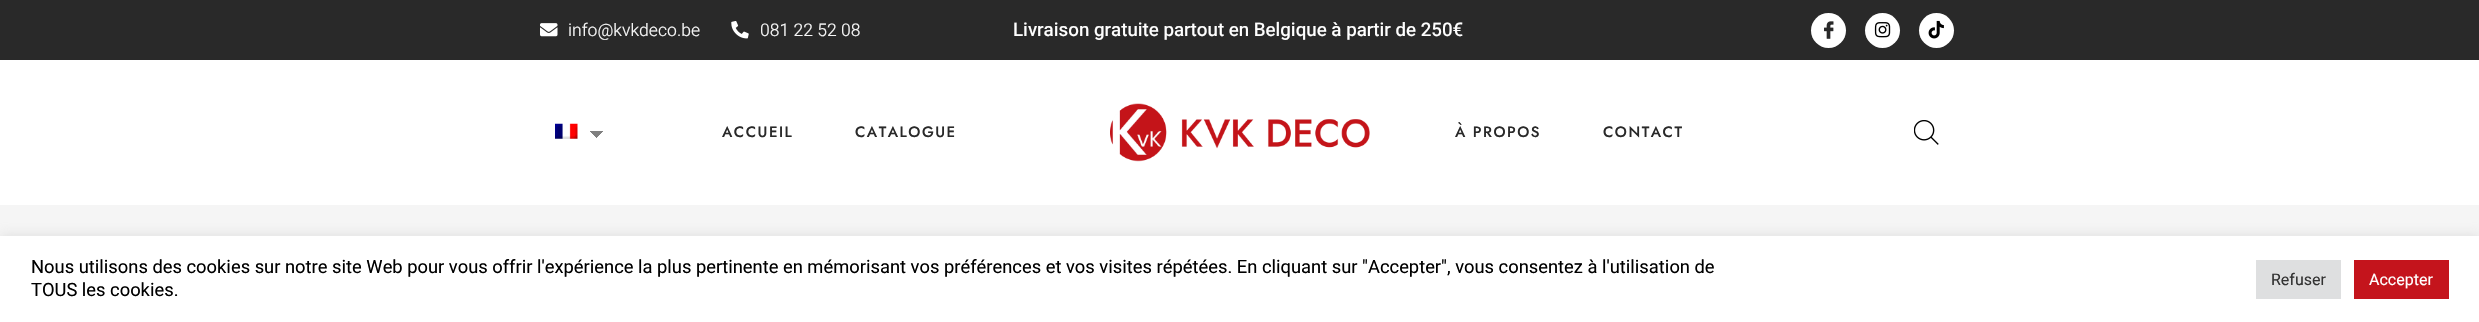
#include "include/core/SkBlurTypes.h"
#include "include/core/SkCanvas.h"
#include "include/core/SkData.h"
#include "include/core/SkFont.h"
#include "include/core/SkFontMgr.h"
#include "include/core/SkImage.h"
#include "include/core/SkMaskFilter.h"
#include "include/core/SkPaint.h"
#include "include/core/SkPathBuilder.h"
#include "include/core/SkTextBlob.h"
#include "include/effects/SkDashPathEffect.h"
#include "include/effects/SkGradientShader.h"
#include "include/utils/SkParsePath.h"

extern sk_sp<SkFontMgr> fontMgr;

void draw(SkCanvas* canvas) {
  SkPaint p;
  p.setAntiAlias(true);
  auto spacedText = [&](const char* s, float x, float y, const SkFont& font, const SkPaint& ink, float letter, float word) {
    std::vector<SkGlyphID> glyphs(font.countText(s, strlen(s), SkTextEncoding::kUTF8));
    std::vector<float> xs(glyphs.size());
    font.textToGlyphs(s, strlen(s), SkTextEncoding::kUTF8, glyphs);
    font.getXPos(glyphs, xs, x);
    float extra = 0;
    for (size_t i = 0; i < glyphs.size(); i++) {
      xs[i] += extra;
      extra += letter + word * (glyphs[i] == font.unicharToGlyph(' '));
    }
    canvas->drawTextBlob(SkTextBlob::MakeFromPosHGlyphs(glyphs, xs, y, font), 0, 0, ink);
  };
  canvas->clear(SK_ColorWHITE);
  p.setColor(SkColorSetRGB(41, 41, 41));
  canvas->drawRect(SkRect::MakeLTRB(0, 0, 2479, 60), p);
  canvas->drawImageRect(SkImages::DeferredFromEncodedData(SkData::MakeFromFileName("images/1.png")), SkRect::MakeLTRB(540, 23, 558, 37), SkSamplingOptions());
  canvas->drawImageRect(SkImages::DeferredFromEncodedData(SkData::MakeFromFileName("images/2.png")), SkRect::MakeLTRB(731, 21, 749, 39), SkSamplingOptions());
  p.setColor(SK_ColorWHITE);
  canvas->drawCircle(1828.5f, 30.5f, 17.5f, p);
  canvas->drawImageRect(SkImages::DeferredFromEncodedData(SkData::MakeFromFileName("images/3.png")), SkRect::MakeLTRB(1824, 21, 1834, 39), SkSamplingOptions());
  canvas->drawCircle(1882.5f, 30.5f, 17.5f, p);
  canvas->drawImageRect(SkImages::DeferredFromEncodedData(SkData::MakeFromFileName("images/4.png")), SkRect::MakeLTRB(1874, 22, 1891, 38), SkSamplingOptions());
  canvas->drawCircle(1936.5f, 30.5f, 17.5f, p);
  canvas->drawImageRect(SkImages::DeferredFromEncodedData(SkData::MakeFromFileName("images/5.png")), SkRect::MakeLTRB(1928, 20, 1944, 39), SkSamplingOptions());
  {
    const SkColor colors[] = {SkColorSetRGB(128, 128, 128), SK_ColorWHITE};
    const float stops[] = {0.5f, 0.5f};
    const SkPoint ends[] = {{596, 131}, {603, 138}};
    p.setShader(SkGradientShader::MakeLinear(ends, colors, stops, 2, SkTileMode::kClamp));
    p.setAlpha(255);
  }
  canvas->drawRect(SkRect::MakeLTRB(596, 131, 603, 138), p);
  {
    const SkColor colors[] = {SK_ColorWHITE, SkColorSetRGB(128, 128, 128)};
    const float stops[] = {0.5f, 0.5f};
    const SkPoint ends[] = {{590, 138}, {596, 131}};
    p.setShader(SkGradientShader::MakeLinear(ends, colors, stops, 2, SkTileMode::kClamp));
    p.setAlpha(255);
  }
  canvas->drawRect(SkRect::MakeLTRB(590, 131, 596, 138), p);
  canvas->drawImageRect(SkImages::DeferredFromEncodedData(SkData::MakeFromFileName("images/6.png")), SkRect::MakeLTRB(555, 123, 578, 139), SkSamplingOptions());
  canvas->drawImageRect(SkImages::DeferredFromEncodedData(SkData::MakeFromFileName("images/7.png")), SkRect::MakeLTRB(1110, 103, 1370, 162), SkSamplingOptions());
  canvas->drawImageRect(SkImages::DeferredFromEncodedData(SkData::MakeFromFileName("images/8.png")), SkRect::MakeLTRB(1914, 120, 1939, 145), SkSamplingOptions());
  p.setShader(nullptr);
  p.setColor(SkColorSetRGB(245, 245, 245));
  canvas->drawRect(SkRect::MakeLTRB(0, 205, 2479, 236), p);
  p.setColor(SkColorSetARGB(77, 172, 171, 171));
  p.setMaskFilter(SkMaskFilter::MakeBlur(kNormal_SkBlurStyle, 6));
  canvas->drawRect(SkRect::MakeLTRB(0, 235, 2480, 321), p);
  p.setMaskFilter(nullptr);
  p.setColor(SK_ColorWHITE);
  canvas->drawRect(SkRect::MakeLTRB(0, 236, 2479, 322), p);
  p.setColor(SkColorSetRGB(222, 223, 224));
  canvas->drawRect(SkRect::MakeLTRB(2256, 260, 2341, 299), p);
  p.setColor(SkColorSetRGB(196, 20, 28));
  canvas->drawRect(SkRect::MakeLTRB(2354, 260, 2449, 299), p);
  SkFont font1(fontMgr->matchFamilyStyle("Heebo", SkFontStyle(300, SkFontStyle::kNormal_Width, SkFontStyle::kUpright_Slant)), 17.5f);
  font1.setSubpixel(true);
  p.setColor(SkColorSetRGB(245, 245, 245));
  canvas->drawString("info@kvkdeco.be", 568, 36, font1, p);
  canvas->drawString("081 22 52 08", 760, 36, font1, p);
  SkFont font2(fontMgr->matchFamilyStyle("Heebo", SkFontStyle(500, SkFontStyle::kNormal_Width, SkFontStyle::kUpright_Slant)), 18.75f);
  font2.setSubpixel(true);
  p.setColor(SK_ColorWHITE);
  canvas->drawString("Livraison gratuite partout en Belgique à partir de 250€", 1013, 36, font2, p);
  SkFont font3(fontMgr->matchFamilyStyle("Jost", SkFontStyle(500, SkFontStyle::kNormal_Width, SkFontStyle::kUpright_Slant)), 15);
  font3.setSubpixel(true);
  p.setColor(SkColorSetRGB(41, 41, 41));
  spacedText("ACCUEIL", 722, 137, font3, p, 1.5f, 0);
  spacedText("CATALOGUE", 855, 137, font3, p, 1.5f, 0);
  spacedText("À PROPOS", 1455, 137, font3, p, 1.5f, 0);
  spacedText("CONTACT", 1603, 137, font3, p, 1.5f, 0);
  SkFont font4(fontMgr->matchFamilyStyle("Heebo", SkFontStyle::Normal()), 18.33f);
  font4.setSubpixel(true);
  p.setColor(SK_ColorBLACK);
  canvas->drawString("Nous utilisons des cookies sur notre site Web pour vous offrir l'expérience la plus pertinente en mémorisant vos préférences et vos visites répétées. En cliquant sur \"Accepter\", vous consentez à l'utilisation de", 31, 273, font4, p);
  canvas->drawString("TOUS les cookies.", 31, 296, font4, p);
  SkFont font5(fontMgr->matchFamilyStyle("Heebo", SkFontStyle::Normal()), 16);
  font5.setSubpixel(true);
  p.setColor(SkColorSetRGB(51, 51, 51));
  canvas->drawString("Refuser", 2271, 285, font5, p);
  p.setColor(SK_ColorWHITE);
  canvas->drawString("Accepter", 2369, 285, font5, p);
}
